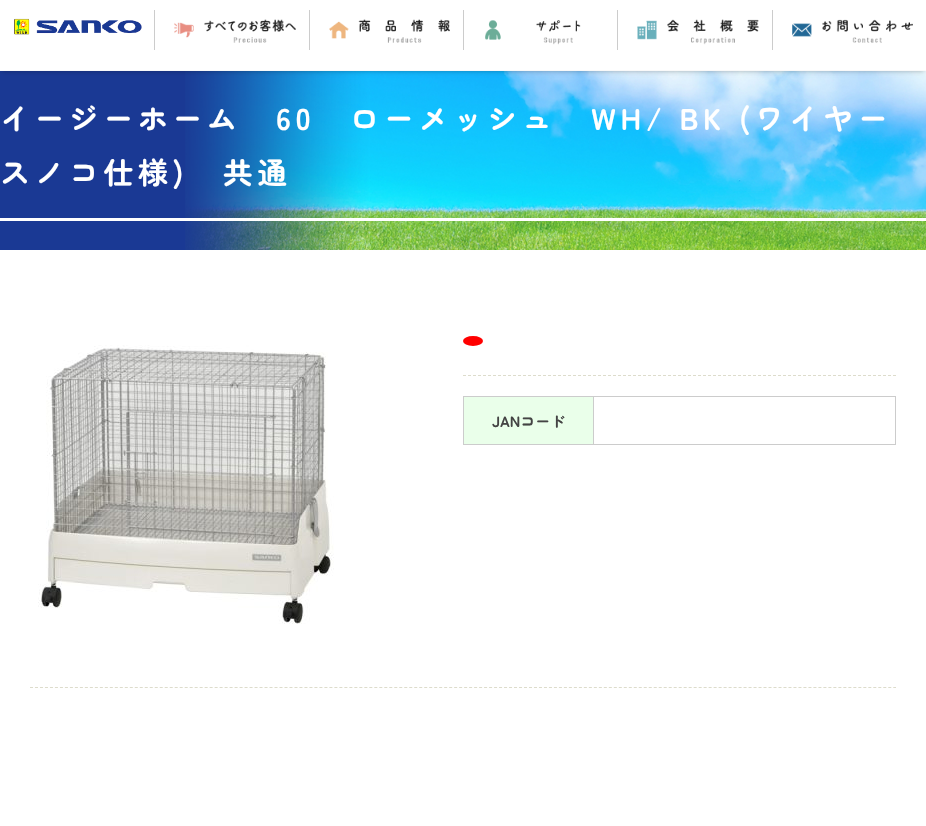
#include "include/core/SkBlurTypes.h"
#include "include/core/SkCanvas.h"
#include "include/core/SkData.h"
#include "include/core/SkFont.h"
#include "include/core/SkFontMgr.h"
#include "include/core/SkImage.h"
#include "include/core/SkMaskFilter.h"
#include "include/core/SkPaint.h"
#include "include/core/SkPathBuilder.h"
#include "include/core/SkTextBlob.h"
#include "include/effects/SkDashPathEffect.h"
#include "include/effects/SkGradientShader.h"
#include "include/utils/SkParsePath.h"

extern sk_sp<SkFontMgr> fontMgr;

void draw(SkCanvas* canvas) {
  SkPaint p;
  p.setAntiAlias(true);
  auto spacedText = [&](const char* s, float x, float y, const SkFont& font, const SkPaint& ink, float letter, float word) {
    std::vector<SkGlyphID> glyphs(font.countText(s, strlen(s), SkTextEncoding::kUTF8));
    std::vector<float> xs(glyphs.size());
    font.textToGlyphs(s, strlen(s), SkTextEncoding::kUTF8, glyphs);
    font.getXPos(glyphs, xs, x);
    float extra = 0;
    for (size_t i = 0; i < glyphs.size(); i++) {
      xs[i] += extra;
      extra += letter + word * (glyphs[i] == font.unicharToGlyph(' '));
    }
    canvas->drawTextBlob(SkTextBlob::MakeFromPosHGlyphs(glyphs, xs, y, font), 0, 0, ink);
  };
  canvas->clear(SK_ColorWHITE);
  p.setColor(SkColorSetRGB(26, 57, 148));
  canvas->drawRect(SkRect::MakeLTRB(0, 71, 369, 250), p);
  canvas->drawImageRect(SkImages::DeferredFromEncodedData(SkData::MakeFromFileName("images/7.png")), SkRect::MakeLTRB(185, 71, 926, 250), SkSamplingOptions());
  p.setColor(SkColorSetARGB(77, 0, 0, 0));
  p.setMaskFilter(SkMaskFilter::MakeBlur(kNormal_SkBlurStyle, 2.5f));
  canvas->drawRect(SkRect::MakeLTRB(2, 4, 924, 71), p);
  p.setMaskFilter(nullptr);
  p.setColor(SK_ColorWHITE);
  canvas->drawRect(SkRect::MakeLTRB(0, 0, 926, 70), p);
  p.setColor(SkColorSetRGB(249, 249, 249));
  canvas->drawRect(SkRect::MakeLTRB(0, 70, 926, 71), p);
  canvas->drawImageRect(SkImages::DeferredFromEncodedData(SkData::MakeFromFileName("images/1.png")), SkRect::MakeLTRB(14, 18, 142, 35), SkSamplingOptions());
  p.setColor(SkColorSetRGB(204, 204, 204));
  canvas->drawRect(SkRect::MakeLTRB(154, 10, 155, 50), p);
  canvas->drawImageRect(SkImages::DeferredFromEncodedData(SkData::MakeFromFileName("images/2.png")), SkRect::MakeLTRB(174, 19, 296, 43), SkSamplingOptions());
  canvas->drawRect(SkRect::MakeLTRB(309, 10, 310, 50), p);
  canvas->drawImageRect(SkImages::DeferredFromEncodedData(SkData::MakeFromFileName("images/3.png")), SkRect::MakeLTRB(329, 19, 450, 43), SkSamplingOptions());
  canvas->drawRect(SkRect::MakeLTRB(463, 10, 464, 50), p);
  canvas->drawImageRect(SkImages::DeferredFromEncodedData(SkData::MakeFromFileName("images/4.png")), SkRect::MakeLTRB(485, 20, 581, 45), SkSamplingOptions());
  canvas->drawRect(SkRect::MakeLTRB(617, 10, 618, 50), p);
  canvas->drawImageRect(SkImages::DeferredFromEncodedData(SkData::MakeFromFileName("images/5.png")), SkRect::MakeLTRB(637, 19, 759, 45), SkSamplingOptions());
  canvas->drawRect(SkRect::MakeLTRB(772, 10, 773, 50), p);
  canvas->drawImageRect(SkImages::DeferredFromEncodedData(SkData::MakeFromFileName("images/6.png")), SkRect::MakeLTRB(792, 19, 913, 43), SkSamplingOptions());
  p.setColor(SK_ColorWHITE);
  canvas->drawRect(SkRect::MakeLTRB(0, 218, 926, 221), p);
  canvas->drawImageRect(SkImages::DeferredFromEncodedData(SkData::MakeFromFileName("images/8.png")), SkRect::MakeLTRB(38, 345, 334, 624), SkSamplingOptions());
  p.setColor(SkColorSetRGB(255, 0, 0));
  canvas->drawOval(SkRect::MakeLTRB(463, 336, 483, 346), p);
  p.setStyle(SkPaint::kStroke_Style);
  p.setStrokeWidth(1);
  p.setColor(SkColorSetRGB(221, 220, 204));
  p.setPathEffect(SkDashPathEffect::Make({{3, 2}}, 0));
  canvas->drawPath(SkPathBuilder().moveTo(463, 375.5f).lineTo(896, 375.5f).detach(), p);
  p.setPathEffect(nullptr);
  p.setStyle(SkPaint::kFill_Style);
  p.setColor(SkColorSetRGB(204, 204, 204));
  canvas->drawRect(SkRect::MakeLTRB(463, 396, 896, 397), p);
  canvas->drawRect(SkRect::MakeLTRB(895, 396, 896, 445), p);
  canvas->drawRect(SkRect::MakeLTRB(463, 444, 896, 445), p);
  canvas->drawRect(SkRect::MakeLTRB(463, 396, 464, 445), p);
  p.setColor(SkColorSetRGB(234, 255, 234));
  canvas->drawRect(SkRect::MakeLTRB(464, 397, 593, 444), p);
  p.setColor(SkColorSetRGB(204, 204, 204));
  canvas->drawRect(SkRect::MakeLTRB(593, 396, 594, 445), p);
  p.setStyle(SkPaint::kStroke_Style);
  p.setColor(SkColorSetRGB(221, 220, 204));
  p.setPathEffect(SkDashPathEffect::Make({{3, 1.99f}}, 0));
  canvas->drawPath(SkPathBuilder().moveTo(30, 687.5f).lineTo(896, 687.5f).detach(), p);
  p.setPathEffect(nullptr);
  SkFont font1(fontMgr->matchFamilyStyle("Zen Maru Gothic", SkFontStyle::Bold()), 30);
  font1.setSubpixel(true);
  p.setStyle(SkPaint::kFill_Style);
  p.setColor(SK_ColorWHITE);
  spacedText("イージーホーム　60　ローメッシュ　WH/ BK (ワイヤー", 0, 130, font1, p, 4.5f, 0);
  spacedText("スノコ仕様)　共通", 0, 184, font1, p, 4.5f, 0);
  SkFont font2(fontMgr->matchFamilyStyle("Zen Maru Gothic", SkFontStyle::Bold()), 15);
  font2.setSubpixel(true);
  p.setColor(SkColorSetRGB(68, 68, 68));
  canvas->drawString("JANコード", 492, 427, font2, p);
}
